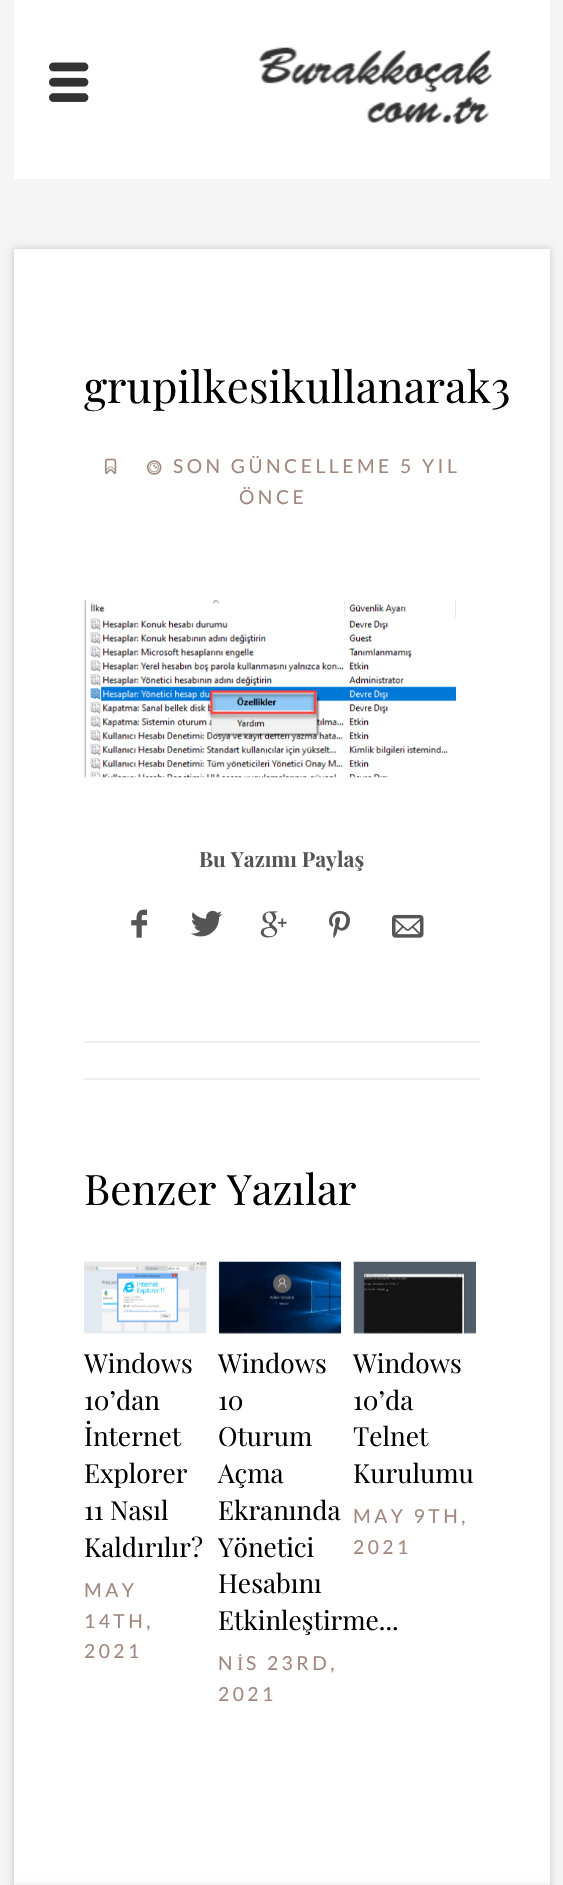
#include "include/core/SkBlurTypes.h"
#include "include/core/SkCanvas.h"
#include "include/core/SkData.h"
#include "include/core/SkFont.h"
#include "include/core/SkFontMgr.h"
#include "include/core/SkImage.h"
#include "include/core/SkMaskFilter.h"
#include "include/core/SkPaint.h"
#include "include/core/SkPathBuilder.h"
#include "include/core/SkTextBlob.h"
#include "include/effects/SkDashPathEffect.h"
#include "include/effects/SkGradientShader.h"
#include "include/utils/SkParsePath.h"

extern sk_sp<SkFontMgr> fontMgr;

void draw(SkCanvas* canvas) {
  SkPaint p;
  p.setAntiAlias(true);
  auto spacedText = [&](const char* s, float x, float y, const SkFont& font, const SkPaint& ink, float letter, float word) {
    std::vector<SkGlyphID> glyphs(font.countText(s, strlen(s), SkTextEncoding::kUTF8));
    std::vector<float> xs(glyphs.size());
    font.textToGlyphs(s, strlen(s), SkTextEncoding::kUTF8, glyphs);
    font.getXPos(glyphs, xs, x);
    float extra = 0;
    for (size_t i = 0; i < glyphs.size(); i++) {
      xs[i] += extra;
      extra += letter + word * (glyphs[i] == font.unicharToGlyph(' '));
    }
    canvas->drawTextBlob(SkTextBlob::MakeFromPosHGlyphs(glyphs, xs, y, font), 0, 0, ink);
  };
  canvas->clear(SkColorSetRGB(245, 245, 245));
  p.setColor(SK_ColorWHITE);
  canvas->drawRect(SkRect::MakeLTRB(14, 0, 550, 179), p);
  canvas->drawImageRect(SkImages::DeferredFromEncodedData(SkData::MakeFromFileName("images/1.png")), SkRect::MakeLTRB(258, 47, 493, 125), SkSamplingOptions());
  canvas->drawImageRect(SkImages::DeferredFromEncodedData(SkData::MakeFromFileName("images/2.png")), SkRect::MakeLTRB(49, 62, 89, 102), SkSamplingOptions());
  p.setColor(SkColorSetARGB(26, 0, 0, 0));
  p.setMaskFilter(SkMaskFilter::MakeBlur(kNormal_SkBlurStyle, 4.5f));
  canvas->drawRect(SkRect::MakeLTRB(14, 250, 550, 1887), p);
  p.setMaskFilter(nullptr);
  p.setColor(SkColorSetARGB(15, 0, 0, 0));
  p.setMaskFilter(SkMaskFilter::MakeBlur(kNormal_SkBlurStyle, 2));
  canvas->drawRect(SkRect::MakeLTRB(12, 247, 551, 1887), p);
  p.setMaskFilter(nullptr);
  p.setColor(SK_ColorWHITE);
  canvas->drawRect(SkRect::MakeLTRB(14, 249, 550, 1885), p);
  canvas->drawImageRect(SkImages::DeferredFromEncodedData(SkData::MakeFromFileName("images/3.png")), SkRect::MakeLTRB(105, 458, 117, 474), SkSamplingOptions());
  canvas->drawImageRect(SkImages::DeferredFromEncodedData(SkData::MakeFromFileName("images/4.png")), SkRect::MakeLTRB(147, 460, 162, 475), SkSamplingOptions());
  canvas->drawImageRect(SkImages::DeferredFromEncodedData(SkData::MakeFromFileName("images/5.png")), SkRect::MakeLTRB(84, 600, 457, 778), SkSamplingOptions());
  canvas->drawImageRect(SkImages::DeferredFromEncodedData(SkData::MakeFromFileName("images/6.png")), SkRect::MakeLTRB(131, 909, 147, 938), SkSamplingOptions());
  canvas->drawImageRect(SkImages::DeferredFromEncodedData(SkData::MakeFromFileName("images/7.png")), SkRect::MakeLTRB(191, 910, 222, 937), SkSamplingOptions());
  canvas->drawImageRect(SkImages::DeferredFromEncodedData(SkData::MakeFromFileName("images/8.png")), SkRect::MakeLTRB(260, 911, 287, 938), SkSamplingOptions());
  canvas->drawImageRect(SkImages::DeferredFromEncodedData(SkData::MakeFromFileName("images/9.png")), SkRect::MakeLTRB(329, 911, 350, 939), SkSamplingOptions());
  canvas->drawImageRect(SkImages::DeferredFromEncodedData(SkData::MakeFromFileName("images/10.png")), SkRect::MakeLTRB(392, 914, 424, 938), SkSamplingOptions());
  p.setColor(SkColorSetRGB(238, 238, 238));
  canvas->drawRect(SkRect::MakeLTRB(84, 1041, 480, 1043), p);
  canvas->drawRect(SkRect::MakeLTRB(84, 1078, 480, 1080), p);
  canvas->drawImageRect(SkImages::DeferredFromEncodedData(SkData::MakeFromFileName("images/11.png")), SkRect::MakeLTRB(84, 1261, 207, 1334), SkSamplingOptions());
  canvas->drawImageRect(SkImages::DeferredFromEncodedData(SkData::MakeFromFileName("images/12.png")), SkRect::MakeLTRB(218, 1261, 342, 1334), SkSamplingOptions());
  canvas->drawImageRect(SkImages::DeferredFromEncodedData(SkData::MakeFromFileName("images/13.png")), SkRect::MakeLTRB(353, 1261, 476, 1334), SkSamplingOptions());
  p.setColor(SkColorSetARGB(15, 0, 0, 0));
  p.setMaskFilter(SkMaskFilter::MakeBlur(kNormal_SkBlurStyle, 2));
  canvas->drawRect(SkRect::MakeLTRB(12, 1883, 551, 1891), p);
  p.setMaskFilter(nullptr);
  SkFont font1(fontMgr->matchFamilyStyle("Playfair Display", SkFontStyle::Normal()), 43.75f);
  font1.setSubpixel(true);
  p.setColor(SK_ColorBLACK);
  canvas->drawString("grupilkesikullanarak3", 84, 403, font1, p);
  SkFont font2(fontMgr->matchFamilyStyle("Lato", SkFontStyle::Normal()), 19.25f);
  font2.setSubpixel(true);
  p.setColor(SkColorSetRGB(161, 136, 127));
  spacedText("SON GÜNCELLEME 5 YIL", 173, 473, font2, p, 3.5f, 0);
  spacedText("ÖNCE", 239, 504, font2, p, 3.5f, 0);
  SkFont font3(fontMgr->matchFamilyStyle("Playfair Display", SkFontStyle::Bold()), 21);
  font3.setSubpixel(true);
  p.setColor(SkColorSetRGB(85, 85, 85));
  canvas->drawString("Bu Yazımı Paylaş", 199, 867, font3, p);
  SkFont font4(fontMgr->matchFamilyStyle("Playfair Display", SkFontStyle::Normal()), 42);
  font4.setSubpixel(true);
  p.setColor(SK_ColorBLACK);
  canvas->drawString("Benzer Yazılar", 84, 1205, font4, p);
  SkFont font5(fontMgr->matchFamilyStyle("Playfair Display", SkFontStyle::Normal()), 26.25f);
  font5.setSubpixel(true);
  canvas->drawString("Windows", 84, 1373, font5, p);
  canvas->drawString("10’dan", 84, 1410, font5, p);
  canvas->drawString("İnternet", 84, 1446, font5, p);
  canvas->drawString("Explorer", 84, 1483, font5, p);
  canvas->drawString("11 Nasıl", 84, 1520, font5, p);
  canvas->drawString("Kaldırılır?", 84, 1557, font5, p);
  p.setColor(SkColorSetRGB(161, 136, 127));
  spacedText("MAY", 84, 1597, font2, p, 3.5f, 0);
  spacedText("14TH,", 84, 1628, font2, p, 3.5f, 0);
  spacedText("2021", 84, 1658, font2, p, 3.5f, 0);
  p.setColor(SK_ColorBLACK);
  canvas->drawString("Windows", 218, 1373, font5, p);
  canvas->drawString("10", 218, 1410, font5, p);
  canvas->drawString("Oturum", 218, 1446, font5, p);
  canvas->drawString("Açma", 218, 1483, font5, p);
  canvas->drawString("Ekranında", 218, 1520, font5, p);
  canvas->drawString("Yönetici", 218, 1557, font5, p);
  canvas->drawString("Hesabını", 218, 1593, font5, p);
  canvas->drawString("Etkinleştirme...", 218, 1630, font5, p);
  p.setColor(SkColorSetRGB(161, 136, 127));
  spacedText("N", 218, 1670, font2, p, 3.5f, 0);
  SkFont font6(fontMgr->matchFamilyStyle("Liberation Serif", SkFontStyle::Normal()), 19.25f);
  font6.setSubpixel(true);
  spacedText("İ", 237, 1670, font6, p, 3.5f, 0);
  spacedText("S 23RD,", 246, 1670, font2, p, 3.5f, 0);
  spacedText("2021", 218, 1701, font2, p, 3.5f, 0);
  p.setColor(SK_ColorBLACK);
  canvas->drawString("Windows", 353, 1373, font5, p);
  canvas->drawString("10’da", 353, 1410, font5, p);
  canvas->drawString("Telnet", 353, 1446, font5, p);
  canvas->drawString("Kurulumu", 353, 1483, font5, p);
  p.setColor(SkColorSetRGB(161, 136, 127));
  spacedText("MAY 9TH,", 353, 1523, font2, p, 3.5f, 0);
  spacedText("2021", 353, 1554, font2, p, 3.5f, 0);
}
